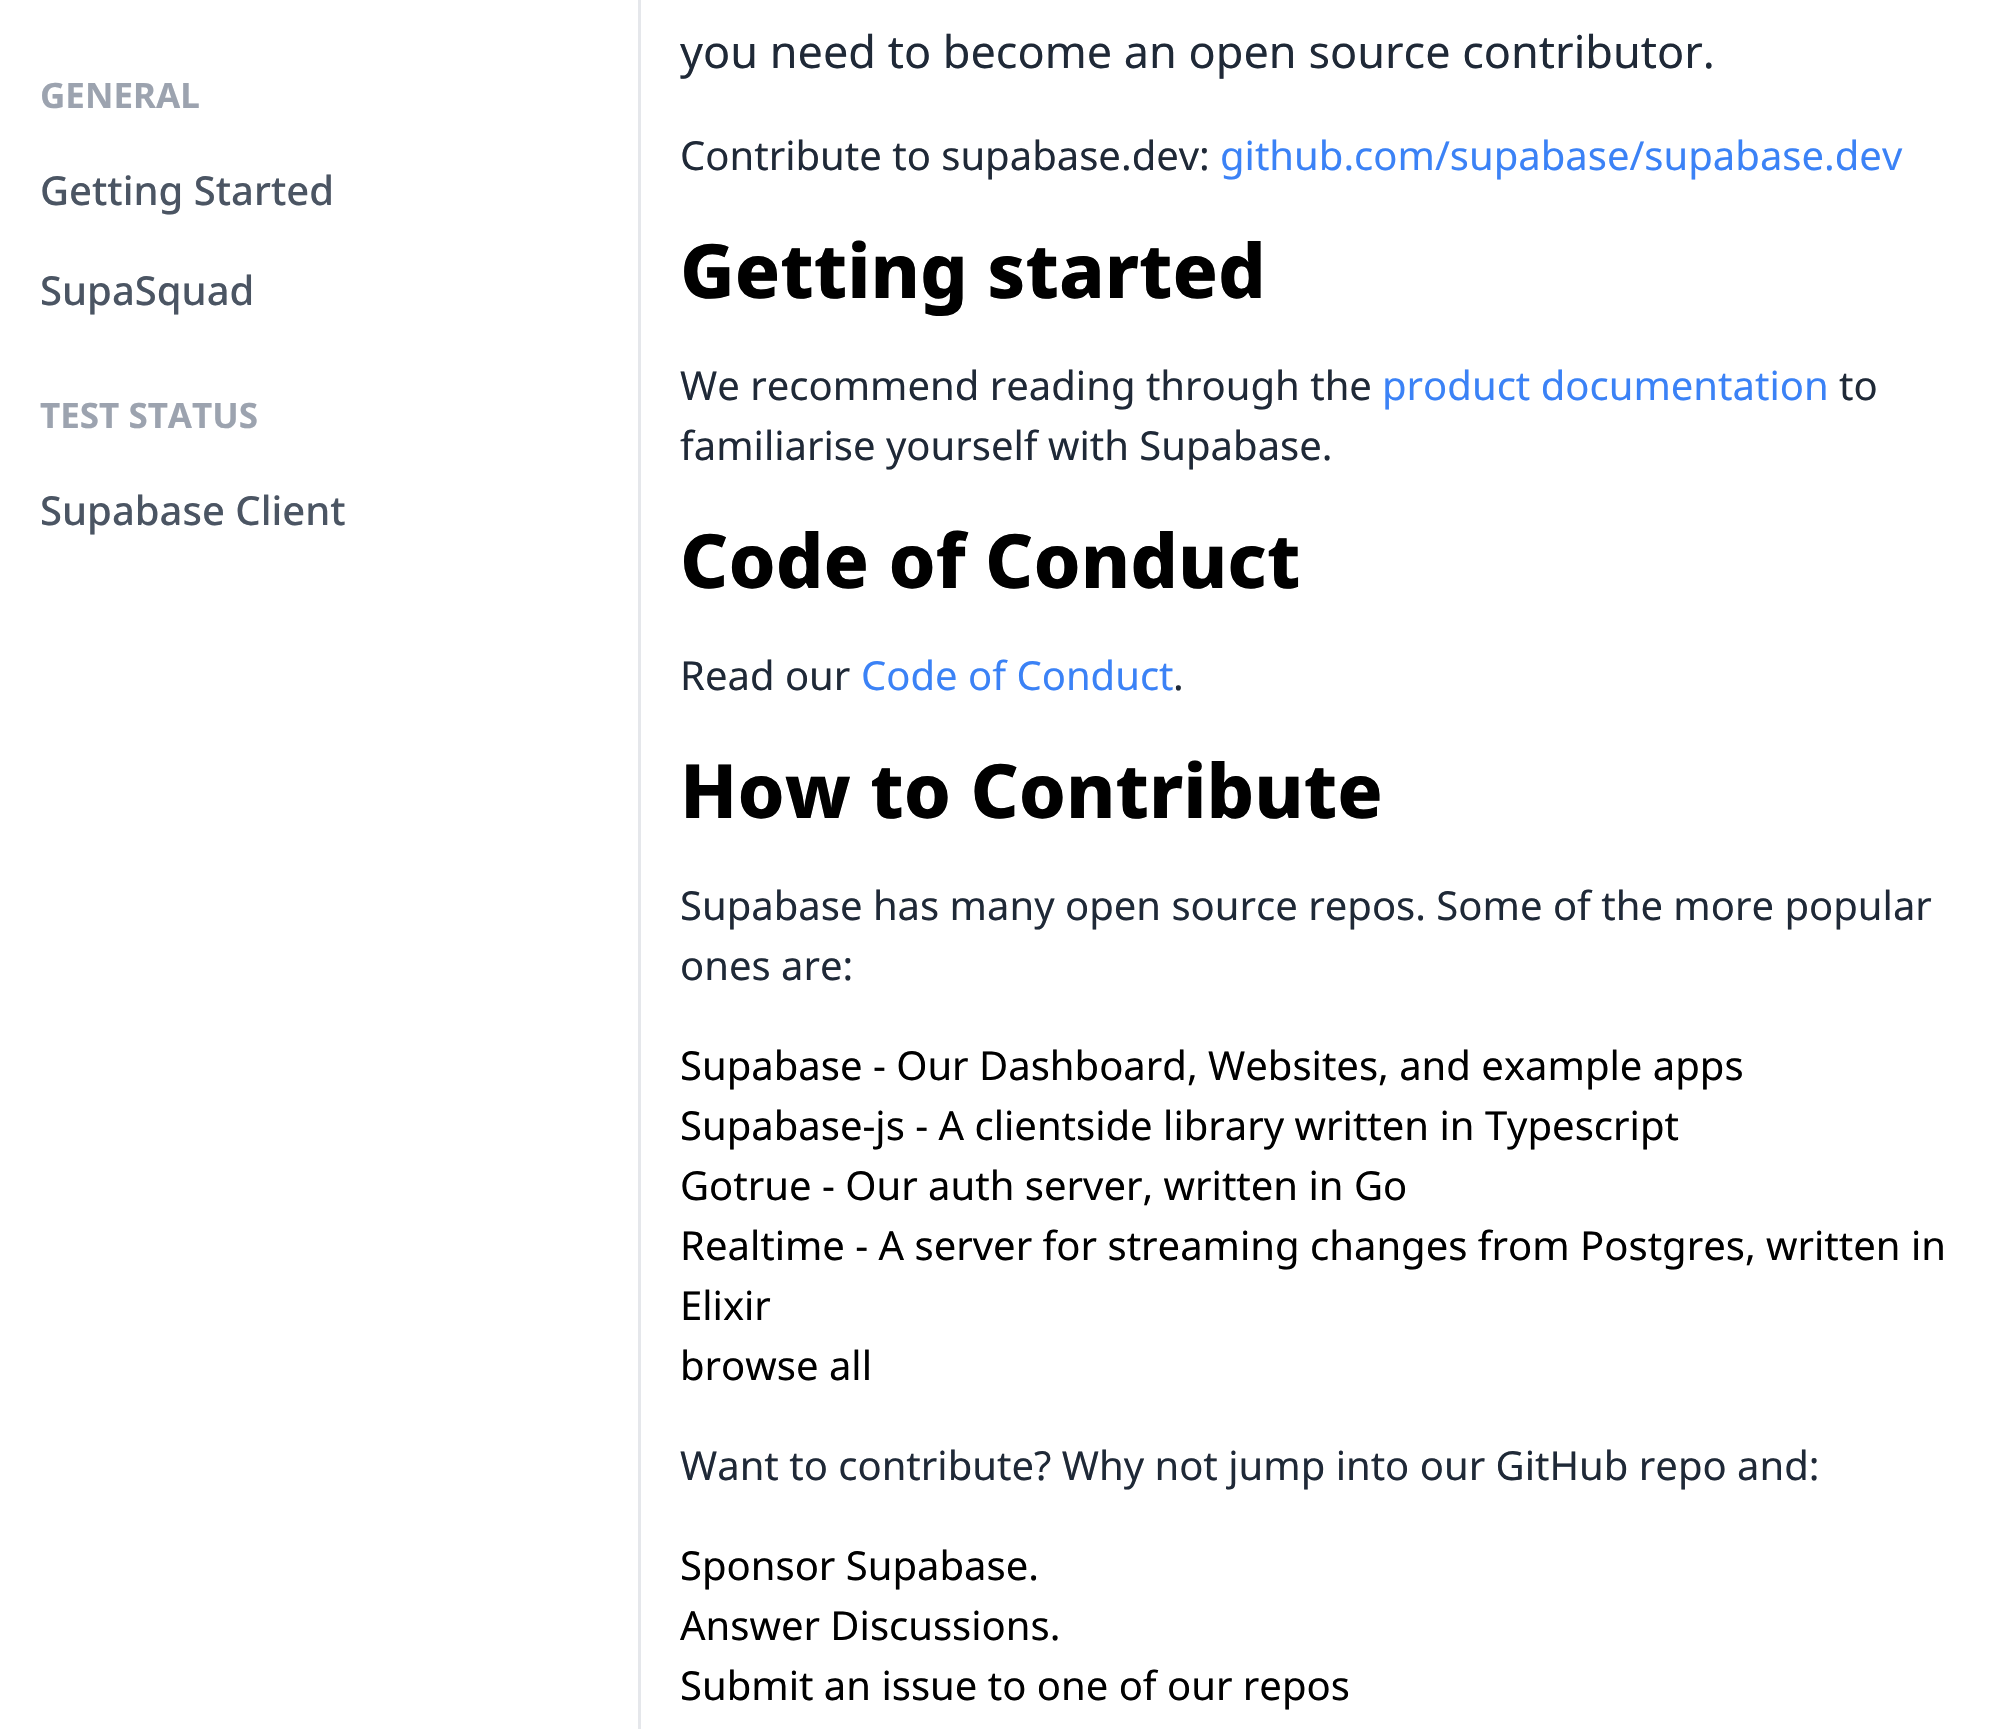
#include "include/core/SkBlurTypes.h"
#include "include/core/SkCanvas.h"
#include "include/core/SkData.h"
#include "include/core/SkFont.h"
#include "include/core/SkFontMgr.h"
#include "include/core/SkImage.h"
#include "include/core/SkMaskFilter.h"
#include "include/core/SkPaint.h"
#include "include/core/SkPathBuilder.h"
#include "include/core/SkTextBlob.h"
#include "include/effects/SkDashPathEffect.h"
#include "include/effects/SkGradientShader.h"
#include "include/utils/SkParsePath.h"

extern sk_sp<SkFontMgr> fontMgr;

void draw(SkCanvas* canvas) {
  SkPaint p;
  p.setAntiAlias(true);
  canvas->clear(SK_ColorWHITE);
  p.setColor(SkColorSetRGB(229, 231, 235));
  canvas->drawRect(SkRect::MakeLTRB(638, 0, 641, 1729), p);
  SkFont font1(fontMgr->matchFamilyStyle("Noto Sans", SkFontStyle::Bold()), 35);
  font1.setSubpixel(true);
  p.setColor(SkColorSetRGB(156, 163, 175));
  canvas->drawString("GENERAL", 40, 108, font1, p);
  SkFont font2(fontMgr->matchFamilyStyle("Noto Sans", SkFontStyle(500, SkFontStyle::kNormal_Width, SkFontStyle::kUpright_Slant)), 40);
  font2.setSubpixel(true);
  p.setColor(SkColorSetRGB(75, 85, 99));
  canvas->drawString("Getting Started", 40, 205, font2, p);
  canvas->drawString("SupaSquad", 40, 305, font2, p);
  p.setColor(SkColorSetRGB(156, 163, 175));
  canvas->drawString("TEST STATUS", 40, 428, font1, p);
  p.setColor(SkColorSetRGB(75, 85, 99));
  canvas->drawString("Supabase Client", 40, 525, font2, p);
  SkFont font3(fontMgr->matchFamilyStyle("Noto Sans", SkFontStyle::Normal()), 45);
  font3.setSubpixel(true);
  p.setColor(SkColorSetRGB(31, 41, 55));
  canvas->drawString("you need to become an open source contributor.", 680, 68, font3, p);
  SkFont font4(fontMgr->matchFamilyStyle("Noto Sans", SkFontStyle::Normal()), 40);
  font4.setSubpixel(true);
  canvas->drawString("Contribute to supabase.dev:", 680, 170, font4, p);
  p.setColor(SkColorSetRGB(59, 130, 246));
  canvas->drawString("github.com/supabase/supabase.dev", 1220, 170, font4, p);
  SkFont font5(fontMgr->matchFamilyStyle("Noto Sans", SkFontStyle(800, SkFontStyle::kNormal_Width, SkFontStyle::kUpright_Slant)), 75);
  font5.setSubpixel(true);
  p.setColor(SK_ColorBLACK);
  canvas->drawString("Getting started", 680, 298, font5, p);
  p.setColor(SkColorSetRGB(31, 41, 55));
  canvas->drawString("We recommend reading through the", 680, 400, font4, p);
  p.setColor(SkColorSetRGB(59, 130, 246));
  canvas->drawString("product documentation", 1382, 400, font4, p);
  p.setColor(SkColorSetRGB(31, 41, 55));
  canvas->drawString("to", 1839, 400, font4, p);
  canvas->drawString("familiarise yourself with Supabase.", 680, 460, font4, p);
  p.setColor(SK_ColorBLACK);
  canvas->drawString("Code of Conduct", 680, 588, font5, p);
  p.setColor(SkColorSetRGB(31, 41, 55));
  canvas->drawString("Read our", 680, 690, font4, p);
  p.setColor(SkColorSetRGB(59, 130, 246));
  canvas->drawString("Code of Conduct", 861, 690, font4, p);
  p.setColor(SkColorSetRGB(31, 41, 55));
  canvas->drawString(".", 1173, 690, font4, p);
  p.setColor(SK_ColorBLACK);
  canvas->drawString("How to Contribute", 680, 818, font5, p);
  p.setColor(SkColorSetRGB(31, 41, 55));
  canvas->drawString("Supabase has many open source repos. Some of the more popular", 680, 920, font4, p);
  canvas->drawString("ones are:", 680, 980, font4, p);
  p.setColor(SK_ColorBLACK);
  canvas->drawString("Supabase - Our Dashboard, Websites, and example apps", 680, 1080, font4, p);
  canvas->drawString("Supabase-js - A clientside library written in Typescript", 680, 1140, font4, p);
  canvas->drawString("Gotrue - Our auth server, written in Go", 680, 1200, font4, p);
  canvas->drawString("Realtime - A server for streaming changes from Postgres, written in", 680, 1260, font4, p);
  canvas->drawString("Elixir", 680, 1320, font4, p);
  canvas->drawString("browse all", 680, 1380, font4, p);
  p.setColor(SkColorSetRGB(31, 41, 55));
  canvas->drawString("Want to contribute? Why not jump into our GitHub repo and:", 680, 1480, font4, p);
  p.setColor(SK_ColorBLACK);
  canvas->drawString("Sponsor Supabase.", 680, 1580, font4, p);
  canvas->drawString("Answer Discussions.", 680, 1640, font4, p);
  canvas->drawString("Submit an issue to one of our repos", 680, 1700, font4, p);
}
